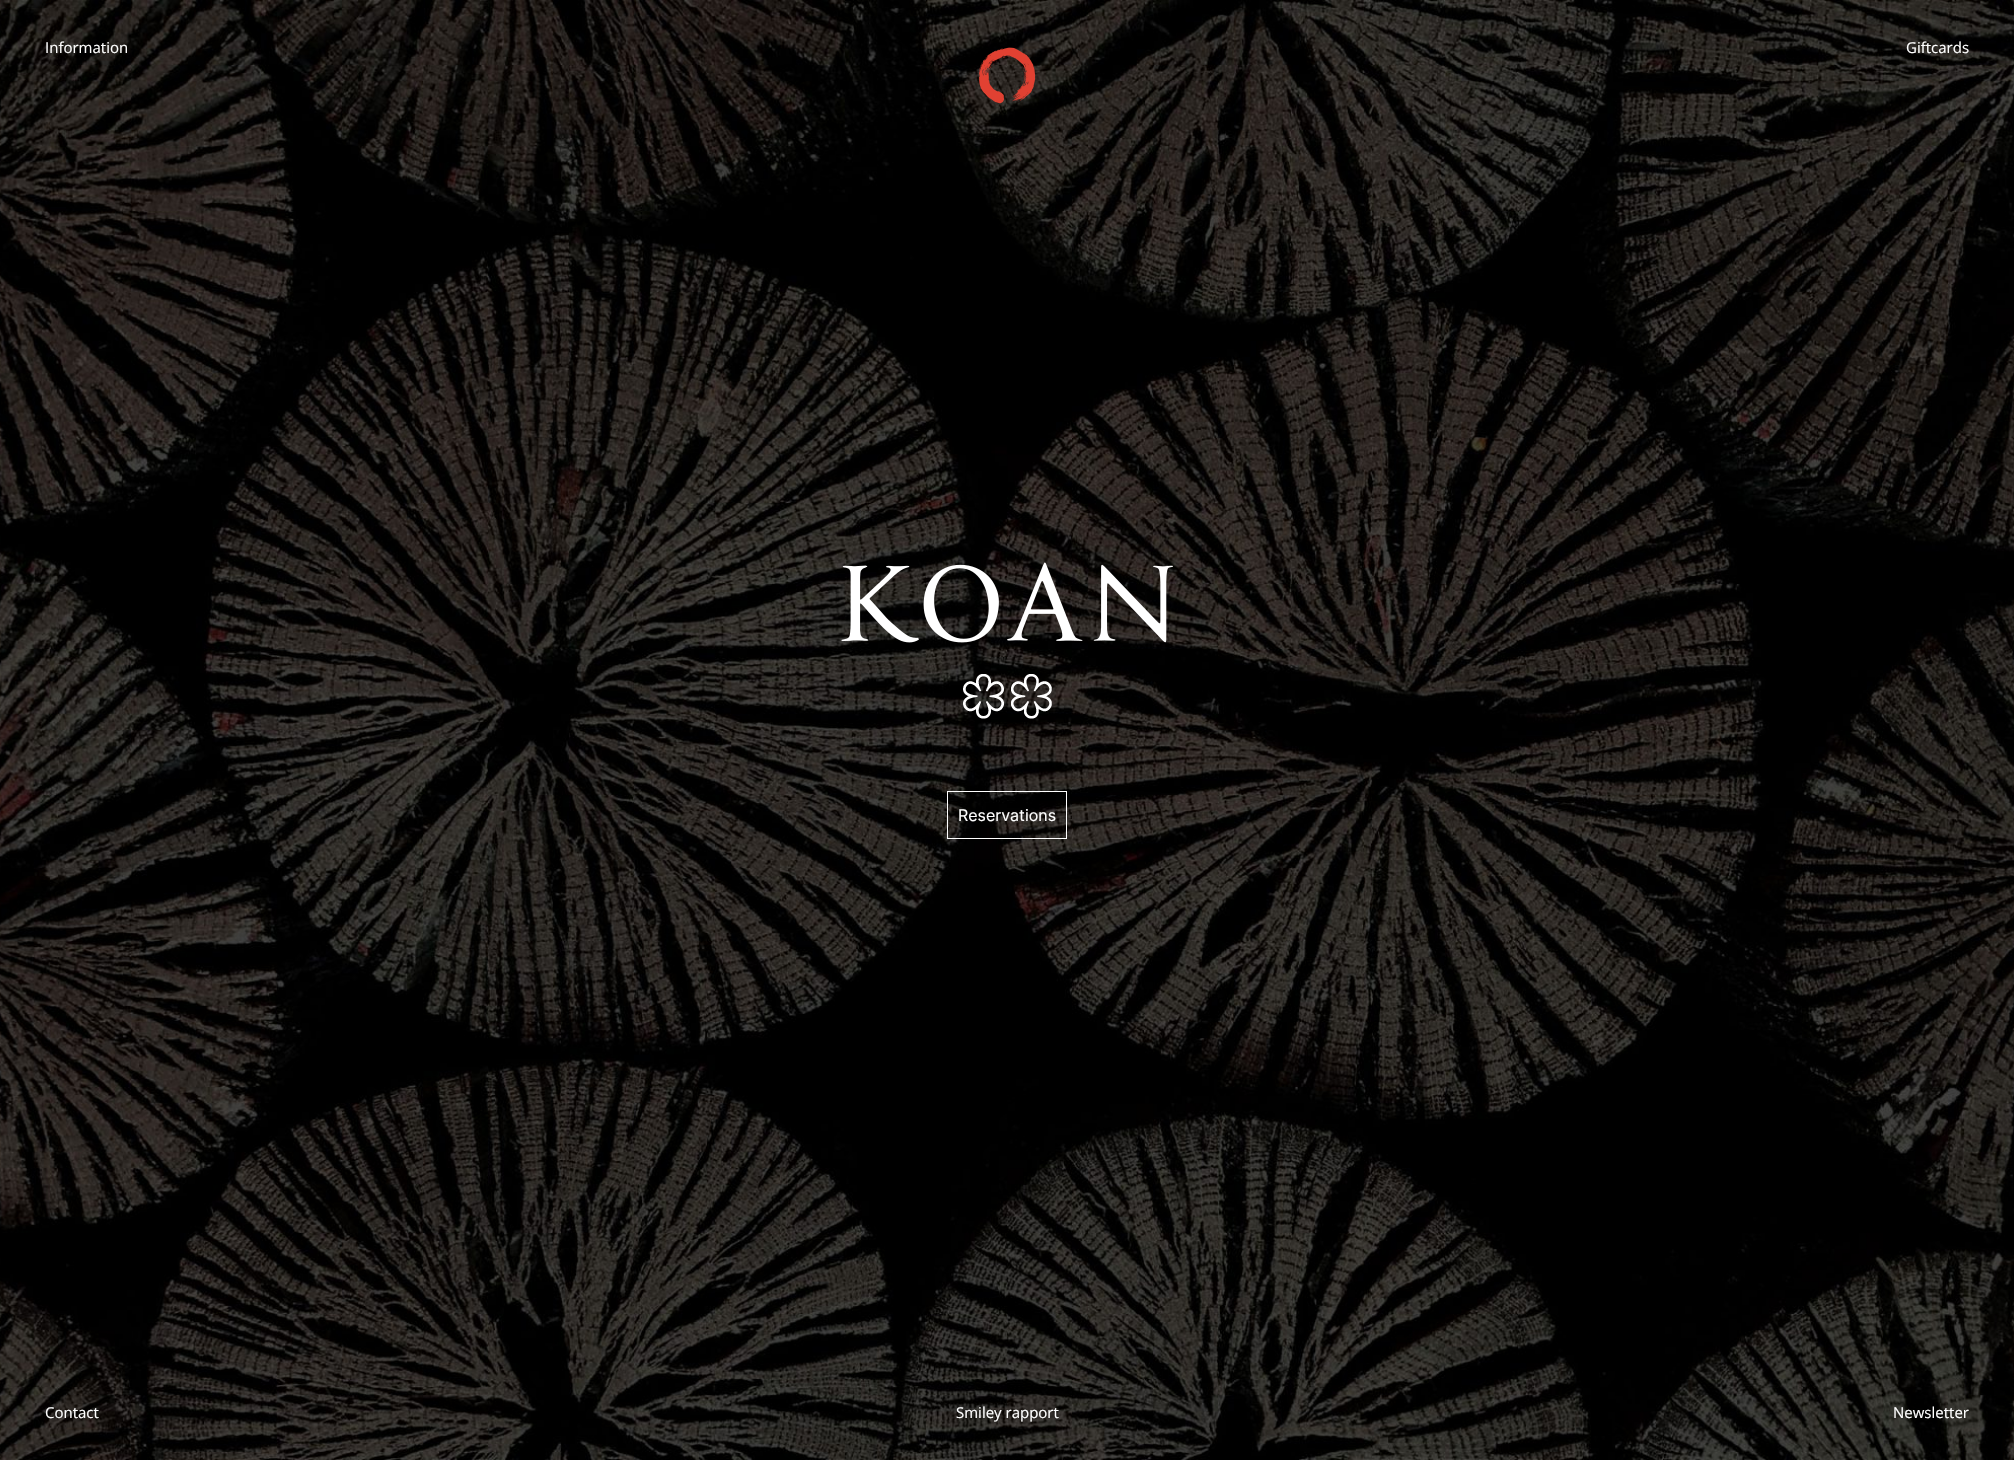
#include "include/core/SkBlurTypes.h"
#include "include/core/SkCanvas.h"
#include "include/core/SkData.h"
#include "include/core/SkFont.h"
#include "include/core/SkFontMgr.h"
#include "include/core/SkImage.h"
#include "include/core/SkMaskFilter.h"
#include "include/core/SkPaint.h"
#include "include/core/SkPathBuilder.h"
#include "include/core/SkTextBlob.h"
#include "include/effects/SkDashPathEffect.h"
#include "include/effects/SkGradientShader.h"
#include "include/utils/SkParsePath.h"

extern sk_sp<SkFontMgr> fontMgr;

void draw(SkCanvas* canvas) {
  SkPaint p;
  p.setAntiAlias(true);
  canvas->clear(SK_ColorWHITE);
  canvas->drawImageRect(SkImages::DeferredFromEncodedData(SkData::MakeFromFileName("images/2.png")), SkRect::MakeLTRB(0, 0, 2014, 1460), SkSamplingOptions());
  canvas->drawImageRect(SkImages::DeferredFromEncodedData(SkData::MakeFromFileName("images/1.png")), SkRect::MakeLTRB(979, 47, 1036, 104), SkSamplingOptions());
  canvas->drawImageRect(SkImages::DeferredFromEncodedData(SkData::MakeFromFileName("images/3.png")), SkRect::MakeLTRB(841, 562, 1173, 643), SkSamplingOptions());
  canvas->drawImageRect(SkImages::DeferredFromEncodedData(SkData::MakeFromFileName("images/4.png")), SkRect::MakeLTRB(963, 674, 1052, 719), SkSamplingOptions());
  p.setStyle(SkPaint::kStroke_Style);
  p.setStrokeWidth(1);
  p.setColor(SK_ColorWHITE);
  canvas->drawRect(SkRect::MakeLTRB(947.5f, 791.5f, 1066.5f, 838.5f), p);
  SkFont font1(fontMgr->matchFamilyStyle("Open Sans", SkFontStyle::Normal()), 15);
  font1.setSubpixel(true);
  p.setStyle(SkPaint::kFill_Style);
  canvas->drawString("Information", 45, 53, font1, p);
  canvas->drawString("Giftcards", 1906, 53, font1, p);
  canvas->drawString("Contact", 45, 1418, font1, p);
  canvas->drawString("Newsletter", 1893, 1418, font1, p);
  SkFont font2(fontMgr->matchFamilyStyle("Inter", SkFontStyle::Normal()), 16);
  font2.setSubpixel(true);
  canvas->drawString("Reservations", 958, 821, font2, p);
  canvas->drawString("Smiley rapport", 956, 1418, font1, p);
}
